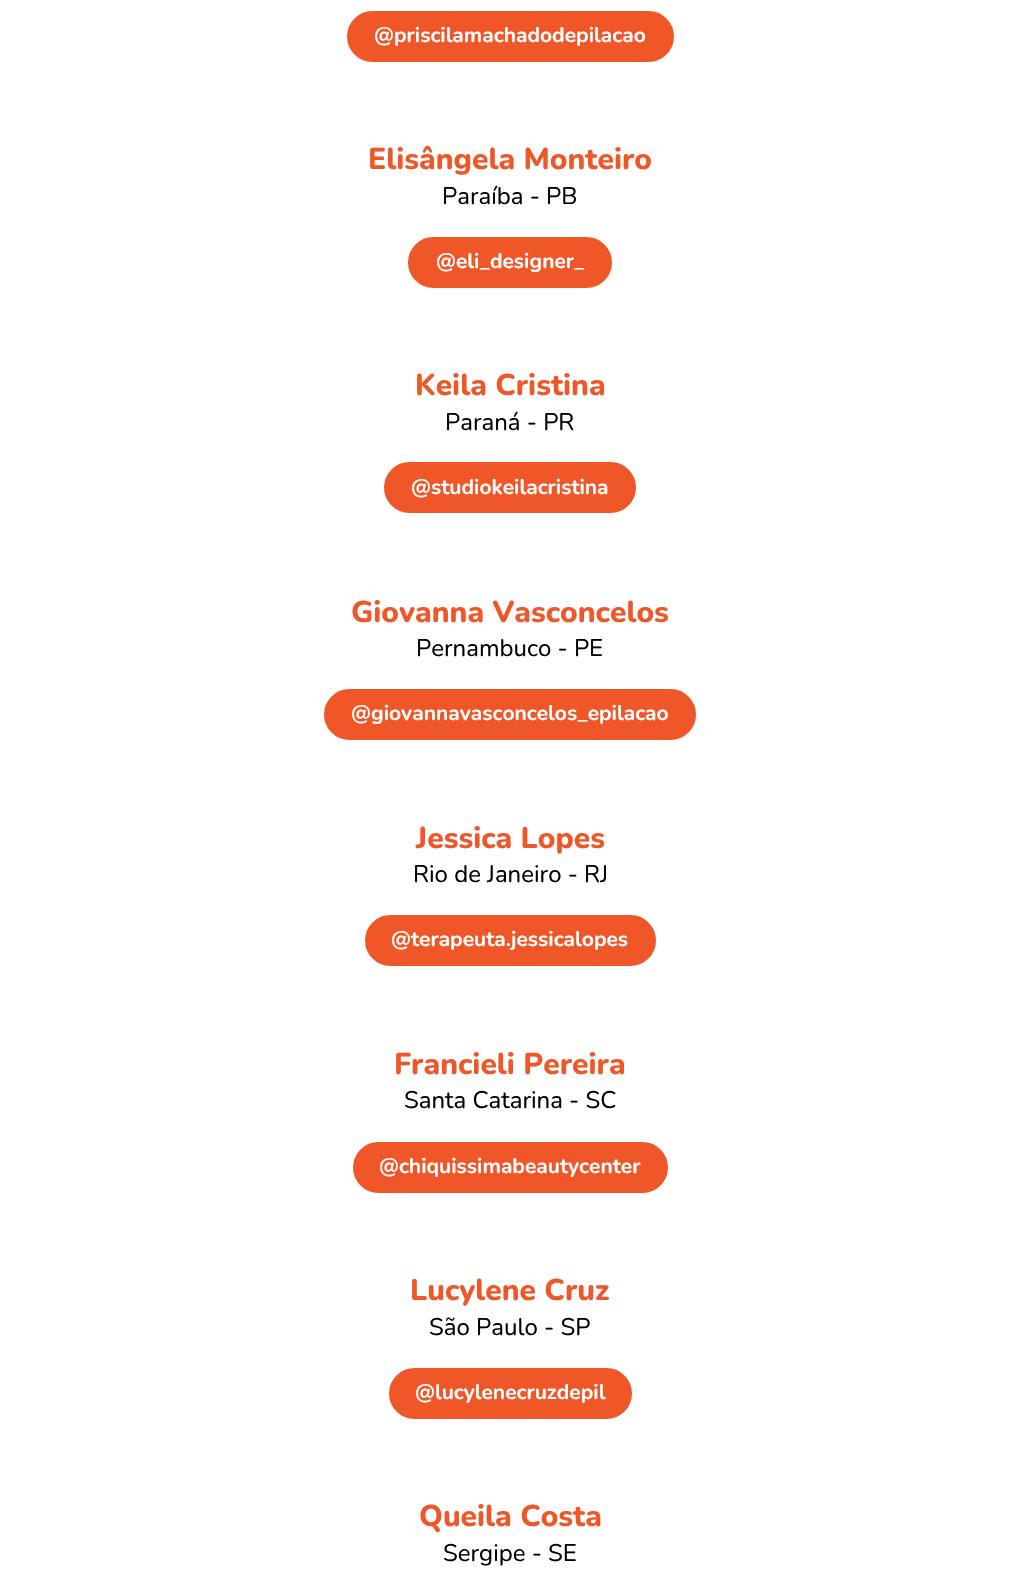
#include "include/core/SkBlurTypes.h"
#include "include/core/SkCanvas.h"
#include "include/core/SkData.h"
#include "include/core/SkFont.h"
#include "include/core/SkFontMgr.h"
#include "include/core/SkImage.h"
#include "include/core/SkMaskFilter.h"
#include "include/core/SkPaint.h"
#include "include/core/SkPathBuilder.h"
#include "include/core/SkTextBlob.h"
#include "include/effects/SkDashPathEffect.h"
#include "include/effects/SkGradientShader.h"
#include "include/utils/SkParsePath.h"

extern sk_sp<SkFontMgr> fontMgr;

void draw(SkCanvas* canvas) {
  SkPaint p;
  p.setAntiAlias(true);
  canvas->clear(SK_ColorWHITE);
  p.setColor(SkColorSetRGB(240, 87, 40));
  canvas->drawRoundRect(SkRect::MakeLTRB(345.5f, 9.5f, 675.5f, 63.5f), 27, 27, p);
  p.setStyle(SkPaint::kStroke_Style);
  p.setStrokeWidth(3);
  p.setColor(SK_ColorWHITE);
  canvas->drawRoundRect(SkRect::MakeLTRB(345.5f, 9.5f, 675.5f, 63.5f), 27, 27, p);
  p.setStyle(SkPaint::kFill_Style);
  p.setColor(SkColorSetRGB(240, 87, 40));
  canvas->drawRoundRect(SkRect::MakeLTRB(406.5f, 235.5f, 613.5f, 289.5f), 27, 27, p);
  p.setStyle(SkPaint::kStroke_Style);
  p.setColor(SK_ColorWHITE);
  canvas->drawRoundRect(SkRect::MakeLTRB(406.5f, 235.5f, 613.5f, 289.5f), 27, 27, p);
  p.setStyle(SkPaint::kFill_Style);
  p.setColor(SkColorSetRGB(240, 87, 40));
  canvas->drawRoundRect(SkRect::MakeLTRB(382.5f, 460.5f, 637.5f, 514.5f), 27, 27, p);
  p.setStyle(SkPaint::kStroke_Style);
  p.setColor(SK_ColorWHITE);
  canvas->drawRoundRect(SkRect::MakeLTRB(382.5f, 460.5f, 637.5f, 514.5f), 27, 27, p);
  p.setStyle(SkPaint::kFill_Style);
  p.setColor(SkColorSetRGB(240, 87, 40));
  canvas->drawRoundRect(SkRect::MakeLTRB(322.5f, 687.5f, 697.5f, 741.5f), 27, 27, p);
  p.setStyle(SkPaint::kStroke_Style);
  p.setColor(SK_ColorWHITE);
  canvas->drawRoundRect(SkRect::MakeLTRB(322.5f, 687.5f, 697.5f, 741.5f), 27, 27, p);
  p.setStyle(SkPaint::kFill_Style);
  p.setColor(SkColorSetRGB(240, 87, 40));
  canvas->drawRoundRect(SkRect::MakeLTRB(363.5f, 913.5f, 657.5f, 967.5f), 27, 27, p);
  p.setStyle(SkPaint::kStroke_Style);
  p.setColor(SK_ColorWHITE);
  canvas->drawRoundRect(SkRect::MakeLTRB(363.5f, 913.5f, 657.5f, 967.5f), 27, 27, p);
  p.setStyle(SkPaint::kFill_Style);
  p.setColor(SkColorSetRGB(240, 87, 40));
  canvas->drawRoundRect(SkRect::MakeLTRB(351.5f, 1140.5f, 669.5f, 1194.5f), 27, 27, p);
  p.setStyle(SkPaint::kStroke_Style);
  p.setColor(SK_ColorWHITE);
  canvas->drawRoundRect(SkRect::MakeLTRB(351.5f, 1140.5f, 669.5f, 1194.5f), 27, 27, p);
  p.setStyle(SkPaint::kFill_Style);
  p.setColor(SkColorSetRGB(240, 87, 40));
  canvas->drawRoundRect(SkRect::MakeLTRB(387.5f, 1366.5f, 633.5f, 1420.5f), 27, 27, p);
  p.setStyle(SkPaint::kStroke_Style);
  p.setColor(SK_ColorWHITE);
  canvas->drawRoundRect(SkRect::MakeLTRB(387.5f, 1366.5f, 633.5f, 1420.5f), 27, 27, p);
  SkFont font1(fontMgr->matchFamilyStyle("Nunito", SkFontStyle::Bold()), 21);
  font1.setSubpixel(true);
  p.setStyle(SkPaint::kFill_Style);
  canvas->drawString("@priscilamachadodepilacao", 374, 42, font1, p);
  SkFont font2(fontMgr->matchFamilyStyle("Nunito", SkFontStyle(800, SkFontStyle::kNormal_Width, SkFontStyle::kUpright_Slant)), 30);
  font2.setSubpixel(true);
  p.setColor(SkColorSetRGB(240, 87, 40));
  canvas->drawString("Elisângela Monteiro", 368, 169, font2, p);
  SkFont font3(fontMgr->matchFamilyStyle("Nunito", SkFontStyle::Normal()), 24);
  font3.setSubpixel(true);
  p.setColor(SK_ColorBLACK);
  canvas->drawString("Paraíba - PB", 442, 204, font3, p);
  p.setColor(SK_ColorWHITE);
  canvas->drawString("@eli_designer_", 436, 268, font1, p);
  p.setColor(SkColorSetRGB(240, 87, 40));
  canvas->drawString("Keila Cristina", 415, 395, font2, p);
  p.setColor(SK_ColorBLACK);
  canvas->drawString("Paraná - PR", 445, 430, font3, p);
  p.setColor(SK_ColorWHITE);
  canvas->drawString("@studiokeilacristina", 411, 494, font1, p);
  p.setColor(SkColorSetRGB(240, 87, 40));
  canvas->drawString("Giovanna Vasconcelos", 351, 622, font2, p);
  p.setColor(SK_ColorBLACK);
  canvas->drawString("Pernambuco - PE", 416, 656, font3, p);
  p.setColor(SK_ColorWHITE);
  canvas->drawString("@giovannavasconcelos_epilacao", 351, 720, font1, p);
  p.setColor(SkColorSetRGB(240, 87, 40));
  canvas->drawString("Jessica Lopes", 416, 848, font2, p);
  p.setColor(SK_ColorBLACK);
  canvas->drawString("Rio de Janeiro - RJ", 413, 882, font3, p);
  p.setColor(SK_ColorWHITE);
  canvas->drawString("@terapeuta.jessicalopes", 391, 946, font1, p);
  p.setColor(SkColorSetRGB(240, 87, 40));
  canvas->drawString("Francieli Pereira", 394, 1074, font2, p);
  p.setColor(SK_ColorBLACK);
  canvas->drawString("Santa Catarina - SC", 404, 1108, font3, p);
  p.setColor(SK_ColorWHITE);
  canvas->drawString("@chiquissimabeautycenter", 379, 1173, font1, p);
  p.setColor(SkColorSetRGB(240, 87, 40));
  canvas->drawString("Lucylene Cruz", 410, 1300, font2, p);
  p.setColor(SK_ColorBLACK);
  canvas->drawString("São Paulo - SP", 429, 1335, font3, p);
  p.setColor(SK_ColorWHITE);
  canvas->drawString("@lucylenecruzdepil", 415, 1399, font1, p);
  p.setColor(SkColorSetRGB(240, 87, 40));
  canvas->drawString("Queila Costa", 419, 1526, font2, p);
  p.setColor(SK_ColorBLACK);
  canvas->drawString("Sergipe - SE", 443, 1561, font3, p);
}
